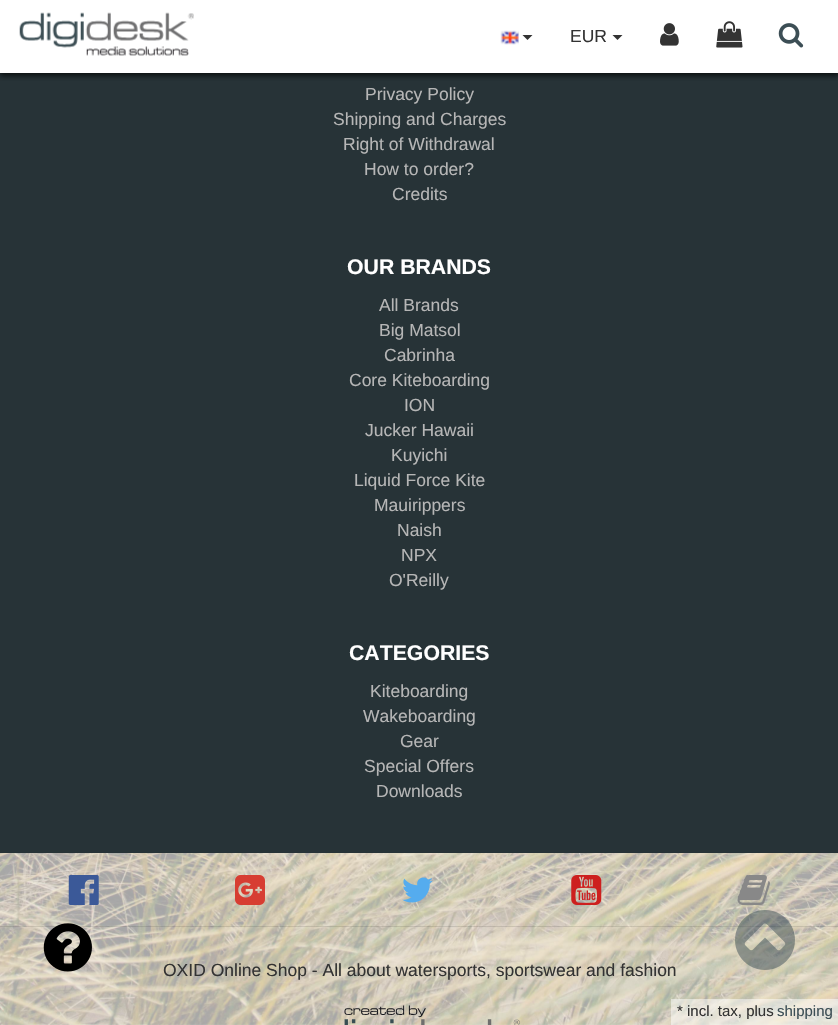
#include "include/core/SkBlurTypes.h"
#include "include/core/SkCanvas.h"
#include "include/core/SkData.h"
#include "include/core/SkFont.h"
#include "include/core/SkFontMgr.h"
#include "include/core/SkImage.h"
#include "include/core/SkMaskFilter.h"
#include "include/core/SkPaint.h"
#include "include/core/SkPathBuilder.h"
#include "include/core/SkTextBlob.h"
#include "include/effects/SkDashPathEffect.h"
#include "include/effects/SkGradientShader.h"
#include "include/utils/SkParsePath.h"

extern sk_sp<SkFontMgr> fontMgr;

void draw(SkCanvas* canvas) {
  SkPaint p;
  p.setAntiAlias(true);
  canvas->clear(SK_ColorWHITE);
  canvas->drawImageRect(SkImages::DeferredFromEncodedData(SkData::MakeFromFileName("images/1.png")), SkRect::MakeLTRB(0, 853, 838, 1025), SkSamplingOptions());
  p.setColor(SkColorSetRGB(39, 51, 55));
  canvas->drawRect(SkRect::MakeLTRB(0, 73, 838, 853), p);
  p.setColor(SkColorSetARGB(128, 0, 0, 0));
  p.setMaskFilter(SkMaskFilter::MakeBlur(kNormal_SkBlurStyle, 3));
  canvas->drawRect(SkRect::MakeLTRB(0, 3, 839, 75), p);
  p.setMaskFilter(nullptr);
  p.setMaskFilter(SkMaskFilter::MakeBlur(kNormal_SkBlurStyle, 3));
  canvas->drawRect(SkRect::MakeLTRB(0, 3, 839, 75), p);
  p.setMaskFilter(nullptr);
  p.setColor(SK_ColorWHITE);
  canvas->drawRect(SkRect::MakeLTRB(0, 0, 838, 73), p);
  canvas->drawImageRect(SkImages::DeferredFromEncodedData(SkData::MakeFromFileName("images/2.png")), SkRect::MakeLTRB(19, 12, 194, 56), SkSamplingOptions());
  canvas->drawImageRect(SkImages::DeferredFromEncodedData(SkData::MakeFromFileName("images/3.png")), SkRect::MakeLTRB(500, 30, 519, 45), SkSamplingOptions());
  p.setColor(SkColorSetRGB(51, 51, 51));
  canvas->drawPath(SkPathBuilder().moveTo(522.5f, 35).lineTo(532.5f, 35).lineTo(527.5f, 40).close().detach(), p);
  canvas->drawPath(SkPathBuilder().moveTo(612.5f, 35).lineTo(622.5f, 35).lineTo(617.5f, 40).close().detach(), p);
  canvas->drawImageRect(SkImages::DeferredFromEncodedData(SkData::MakeFromFileName("images/4.png")), SkRect::MakeLTRB(660, 23, 679, 46), SkSamplingOptions());
  canvas->drawImageRect(SkImages::DeferredFromEncodedData(SkData::MakeFromFileName("images/5.png")), SkRect::MakeLTRB(716, 21, 743, 48), SkSamplingOptions());
  canvas->drawImageRect(SkImages::DeferredFromEncodedData(SkData::MakeFromFileName("images/6.png")), SkRect::MakeLTRB(778, 23, 804, 48), SkSamplingOptions());
  p.setColor(SkColorSetARGB(166, 255, 255, 255));
  canvas->drawRect(SkRect::MakeLTRB(0, 853, 838, 928), p);
  p.setColor(SkColorSetARGB(26, 0, 0, 0));
  canvas->drawRect(SkRect::MakeLTRB(0, 926, 838, 927), p);
  p.setColor(SkColorSetARGB(166, 255, 255, 255));
  canvas->drawRect(SkRect::MakeLTRB(0, 928, 838, 1025), p);
  canvas->drawImageRect(SkImages::DeferredFromEncodedData(SkData::MakeFromFileName("images/7.png")), SkRect::MakeLTRB(43, 923, 92, 972), SkSamplingOptions());
  canvas->drawImageRect(SkImages::DeferredFromEncodedData(SkData::MakeFromFileName("images/8.png")), SkRect::MakeLTRB(68, 875, 99, 905), SkSamplingOptions());
  canvas->drawImageRect(SkImages::DeferredFromEncodedData(SkData::MakeFromFileName("images/9.png")), SkRect::MakeLTRB(235, 875, 265, 905), SkSamplingOptions());
  canvas->drawImageRect(SkImages::DeferredFromEncodedData(SkData::MakeFromFileName("images/10.png")), SkRect::MakeLTRB(402, 877, 433, 903), SkSamplingOptions());
  canvas->drawImageRect(SkImages::DeferredFromEncodedData(SkData::MakeFromFileName("images/11.png")), SkRect::MakeLTRB(571, 875, 602, 905), SkSamplingOptions());
  canvas->drawImageRect(SkImages::DeferredFromEncodedData(SkData::MakeFromFileName("images/12.png")), SkRect::MakeLTRB(737, 875, 770, 905), SkSamplingOptions());
  canvas->drawImageRect(SkImages::DeferredFromEncodedData(SkData::MakeFromFileName("images/13.png")), SkRect::MakeLTRB(344, 1005, 520, 1025), SkSamplingOptions());
  canvas->drawImageRect(SkImages::DeferredFromEncodedData(SkData::MakeFromFileName("images/14.png")), SkRect::MakeLTRB(735, 910, 795, 970), SkSamplingOptions());
  p.setColor(SkColorSetARGB(128, 255, 255, 255));
  canvas->drawRect(SkRect::MakeLTRB(671, 999, 838, 1025), p);
  SkFont font1(fontMgr->matchFamilyStyle("Liberation Sans", SkFontStyle::Normal()), 17.5f);
  font1.setSubpixel(true);
  p.setColor(SkColorSetRGB(51, 51, 51));
  canvas->drawString("EUR", 570, 42, font1, p);
  p.setColor(SkColorSetRGB(182, 182, 182));
  canvas->drawString("Privacy Policy", 365, 100, font1, p);
  canvas->drawString("Shipping and Charges", 333, 125, font1, p);
  canvas->drawString("Right of Withdrawal", 343, 150, font1, p);
  canvas->drawString("How to order?", 364, 175, font1, p);
  canvas->drawString("Credits", 392, 200, font1, p);
  SkFont font2(fontMgr->matchFamilyStyle("Liberation Sans", SkFontStyle::Bold()), 21.25f);
  font2.setSubpixel(true);
  p.setColor(SK_ColorWHITE);
  canvas->drawString("OUR BRANDS", 347, 274, font2, p);
  p.setColor(SkColorSetRGB(182, 182, 182));
  canvas->drawString("All Brands", 379, 311, font1, p);
  canvas->drawString("Big Matsol", 379, 336, font1, p);
  canvas->drawString("Cabrinha", 384, 361, font1, p);
  canvas->drawString("Core Kiteboarding", 349, 386, font1, p);
  canvas->drawString("ION", 404, 411, font1, p);
  canvas->drawString("Jucker Hawaii", 365, 436, font1, p);
  canvas->drawString("Kuyichi", 391, 461, font1, p);
  canvas->drawString("Liquid Force Kite", 354, 486, font1, p);
  canvas->drawString("Mauirippers", 374, 511, font1, p);
  canvas->drawString("Naish", 397, 536, font1, p);
  canvas->drawString("NPX", 401, 561, font1, p);
  canvas->drawString("O'Reilly", 389, 586, font1, p);
  p.setColor(SK_ColorWHITE);
  canvas->drawString("CATEGORIES", 349, 660, font2, p);
  p.setColor(SkColorSetRGB(182, 182, 182));
  canvas->drawString("Kiteboarding", 370, 697, font1, p);
  canvas->drawString("Wakeboarding", 363, 722, font1, p);
  canvas->drawString("Gear", 400, 747, font1, p);
  canvas->drawString("Special Offers", 364, 772, font1, p);
  canvas->drawString("Downloads", 376, 797, font1, p);
  p.setColor(SkColorSetRGB(51, 51, 51));
  canvas->drawString("OXID Online Shop - All about watersports, sportswear and fashion", 163, 976, font1, p);
  SkFont font3(fontMgr->matchFamilyStyle("Liberation Sans", SkFontStyle::Normal()), 15);
  font3.setSubpixel(true);
  canvas->drawString("* incl. tax, plus", 677, 1016, font3, p);
  p.setColor(SkColorSetRGB(60, 78, 85));
  canvas->drawString("shipping", 777, 1016, font3, p);
}
